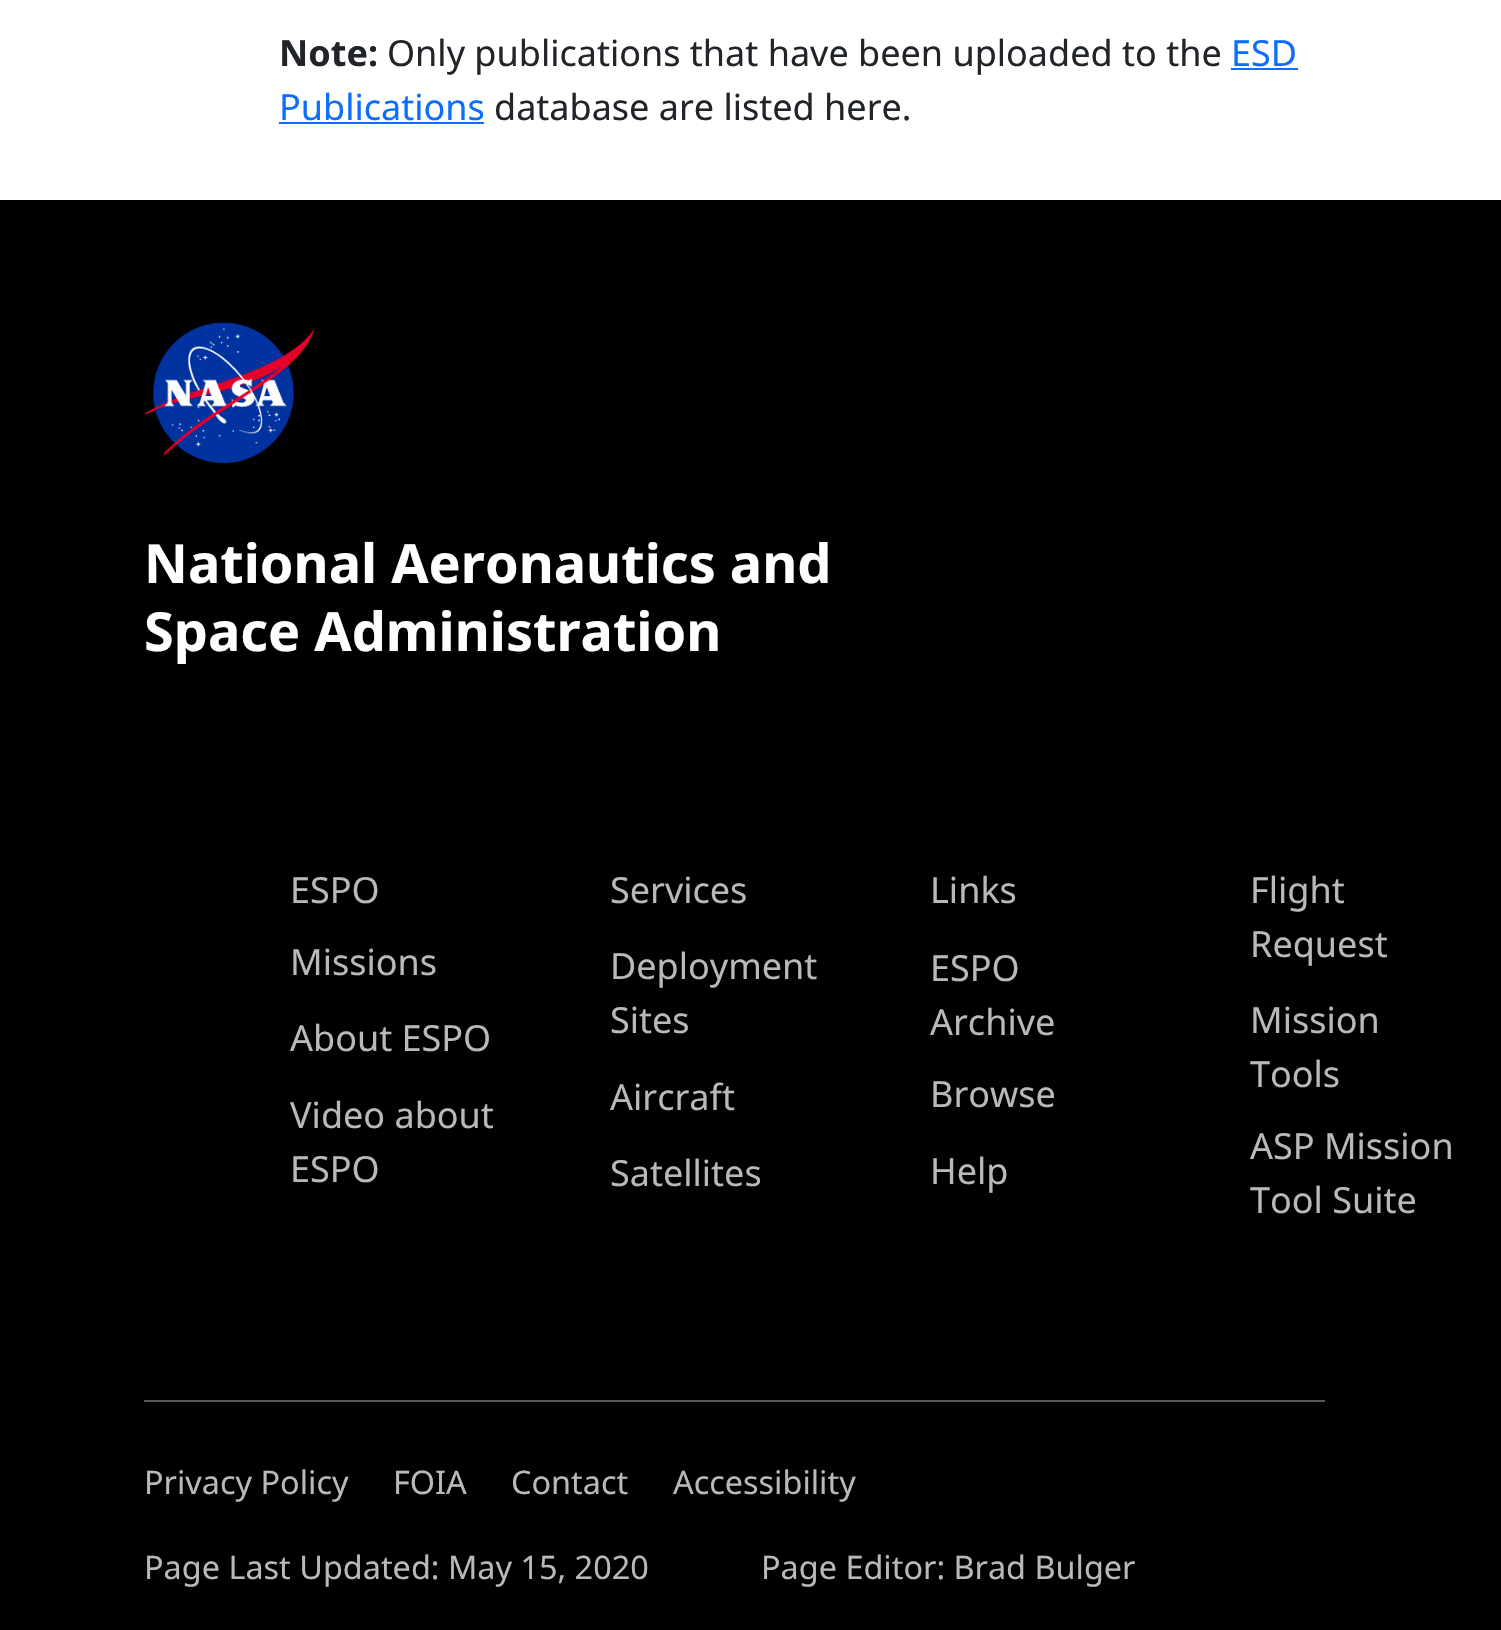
#include "include/core/SkBlurTypes.h"
#include "include/core/SkCanvas.h"
#include "include/core/SkData.h"
#include "include/core/SkFont.h"
#include "include/core/SkFontMgr.h"
#include "include/core/SkImage.h"
#include "include/core/SkMaskFilter.h"
#include "include/core/SkPaint.h"
#include "include/core/SkPathBuilder.h"
#include "include/core/SkTextBlob.h"
#include "include/effects/SkDashPathEffect.h"
#include "include/effects/SkGradientShader.h"
#include "include/utils/SkParsePath.h"

extern sk_sp<SkFontMgr> fontMgr;

void draw(SkCanvas* canvas) {
  SkPaint p;
  p.setAntiAlias(true);
  canvas->clear(SK_ColorWHITE);
  p.setColor(SkColorSetRGB(13, 110, 253));
  canvas->drawRect(SkRect::MakeLTRB(1231, 68, 1298, 70), p);
  canvas->drawRect(SkRect::MakeLTRB(279, 122, 484, 124), p);
  p.setColor(SK_ColorBLACK);
  canvas->drawRect(SkRect::MakeLTRB(0, 200, 1501, 1630), p);
  canvas->drawImageRect(SkImages::DeferredFromEncodedData(SkData::MakeFromFileName("images/1.png")), SkRect::MakeLTRB(144, 322, 315, 464), SkSamplingOptions());
  p.setColor(SkColorSetRGB(88, 88, 91));
  canvas->drawRect(SkRect::MakeLTRB(144, 1400, 1325, 1402), p);
  SkFont font1(fontMgr->matchFamilyStyle("Noto Sans", SkFontStyle::Bold()), 36);
  font1.setSubpixel(true);
  p.setColor(SkColorSetRGB(33, 37, 41));
  canvas->drawString("Note:", 279, 66, font1, p);
  SkFont font2(fontMgr->matchFamilyStyle("Noto Sans", SkFontStyle::Normal()), 36);
  font2.setSubpixel(true);
  canvas->drawString("Only publications that have been uploaded to the", 387, 66, font2, p);
  p.setColor(SkColorSetRGB(13, 110, 253));
  canvas->drawString("ESD", 1231, 66, font2, p);
  canvas->drawString("Publications", 279, 120, font2, p);
  p.setColor(SkColorSetRGB(33, 37, 41));
  canvas->drawString("database are listed here.", 494, 120, font2, p);
  SkFont font3(fontMgr->matchFamilyStyle("Noto Sans", SkFontStyle::Bold()), 54);
  font3.setSubpixel(true);
  p.setColor(SK_ColorWHITE);
  canvas->drawString("National Aeronautics and", 144, 583, font3, p);
  canvas->drawString("Space Administration", 144, 651, font3, p);
  p.setColor(SkColorSetRGB(185, 185, 187));
  canvas->drawString("Services", 610, 903, font2, p);
  canvas->drawString("Links", 930, 903, font2, p);
  canvas->drawString("Missions", 290, 975, font2, p);
  canvas->drawString("Deployment", 610, 979, font2, p);
  canvas->drawString("Sites", 610, 1033, font2, p);
  canvas->drawString("About ESPO", 290, 1051, font2, p);
  canvas->drawString("Aircraft", 610, 1110, font2, p);
  canvas->drawString("Video about", 290, 1128, font2, p);
  canvas->drawString("ESPO", 290, 1182, font2, p);
  canvas->drawString("Satellites", 610, 1186, font2, p);
  canvas->drawString("ESPO", 290, 903, font2, p);
  canvas->drawString("Flight", 1250, 903, font2, p);
  canvas->drawString("Request", 1250, 957, font2, p);
  canvas->drawString("ESPO", 930, 981, font2, p);
  canvas->drawString("Archive", 930, 1035, font2, p);
  canvas->drawString("Browse", 930, 1107, font2, p);
  canvas->drawString("Help", 930, 1184, font2, p);
  canvas->drawString("Mission", 1250, 1033, font2, p);
  canvas->drawString("Tools", 1250, 1087, font2, p);
  canvas->drawString("ASP Mission", 1250, 1159, font2, p);
  canvas->drawString("Tool Suite", 1250, 1213, font2, p);
  SkFont font4(fontMgr->matchFamilyStyle("Noto Sans", SkFontStyle::Normal()), 32.4f);
  font4.setSubpixel(true);
  canvas->drawString("Privacy Policy", 144, 1494, font4, p);
  canvas->drawString("FOIA", 393, 1494, font4, p);
  canvas->drawString("Contact", 511, 1494, font4, p);
  canvas->drawString("Accessibility", 673, 1494, font4, p);
  canvas->drawString("Page Last Updated: May 15, 2020", 144, 1579, font4, p);
  canvas->drawString("Page Editor: Brad Bulger", 761, 1579, font4, p);
}
